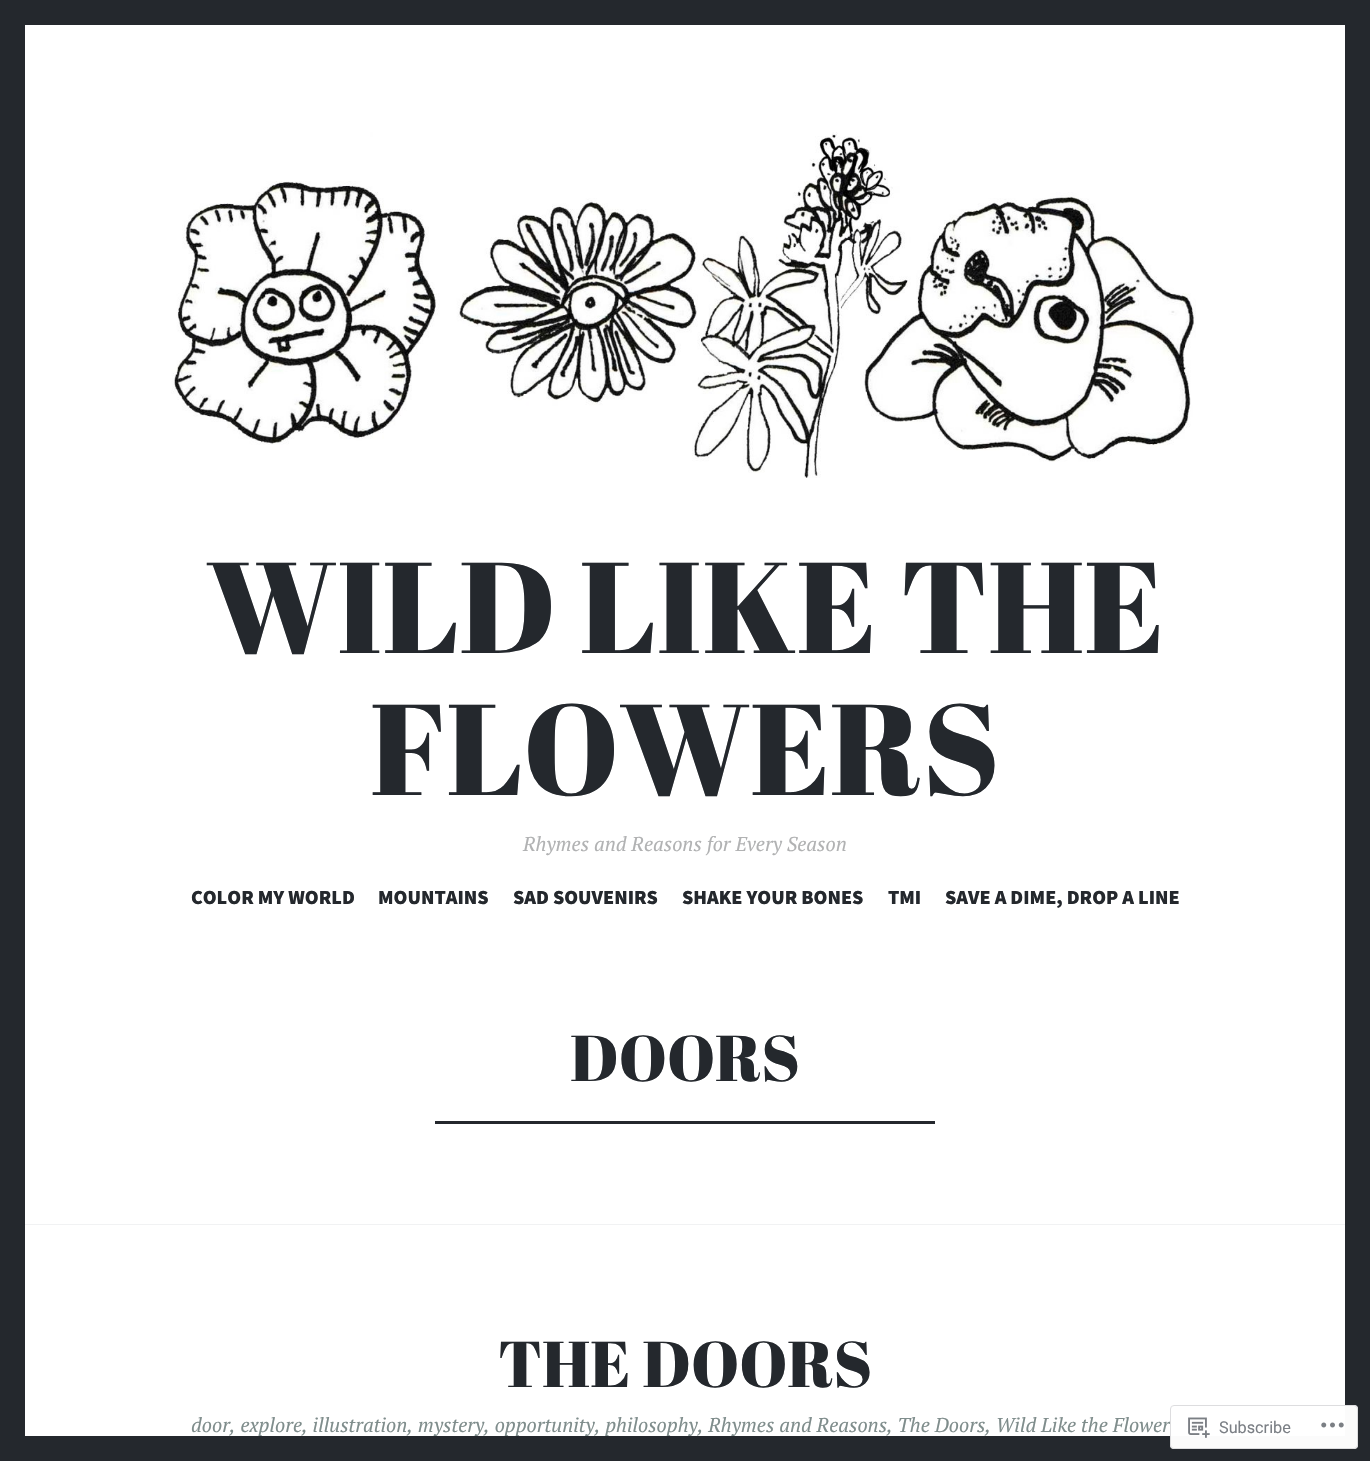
#include "include/core/SkBlurTypes.h"
#include "include/core/SkCanvas.h"
#include "include/core/SkData.h"
#include "include/core/SkFont.h"
#include "include/core/SkFontMgr.h"
#include "include/core/SkImage.h"
#include "include/core/SkMaskFilter.h"
#include "include/core/SkPaint.h"
#include "include/core/SkPathBuilder.h"
#include "include/core/SkTextBlob.h"
#include "include/effects/SkDashPathEffect.h"
#include "include/effects/SkGradientShader.h"
#include "include/utils/SkParsePath.h"

extern sk_sp<SkFontMgr> fontMgr;

void draw(SkCanvas* canvas) {
  SkPaint p;
  p.setAntiAlias(true);
  canvas->clear(SkColorSetRGB(36, 40, 45));
  p.setColor(SK_ColorWHITE);
  canvas->drawRect(SkRect::MakeLTRB(25, 25, 1345, 1436), p);
  canvas->drawImageRect(SkImages::DeferredFromEncodedData(SkData::MakeFromFileName("images/1.png")), SkRect::MakeLTRB(171, 132, 1196, 478), SkSamplingOptions());
  p.setColor(SkColorSetRGB(36, 40, 45));
  canvas->drawRect(SkRect::MakeLTRB(435, 1121, 935, 1124), p);
  p.setColor(SkColorSetRGB(241, 242, 243));
  canvas->drawRect(SkRect::MakeLTRB(25, 1224, 1345, 1225), p);
  SkFont font1(fontMgr->matchFamilyStyle("Abril Fatface", SkFontStyle::Normal()), 128.75f);
  font1.setSubpixel(true);
  p.setColor(SkColorSetRGB(36, 40, 45));
  canvas->drawString("WILD LIKE THE", 206, 653, font1, p);
  canvas->drawString("FLOWERS", 370, 795, font1, p);
  SkFont font2(fontMgr->matchFamilyStyle("PT Serif", SkFontStyle::Italic()), 20.05f);
  font2.setSubpixel(true);
  p.setColor(SkColorSetRGB(177, 178, 179));
  canvas->drawString("Rhymes and Reasons for Every Season", 523, 851, font2, p);
  SkFont font3(fontMgr->matchFamilyStyle("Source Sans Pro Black", SkFontStyle(900, SkFontStyle::kNormal_Width, SkFontStyle::kUpright_Slant)), 20.05f);
  font3.setSubpixel(true);
  p.setColor(SkColorSetRGB(36, 40, 45));
  canvas->drawString("COLOR MY WORLD", 191, 904, font3, p);
  canvas->drawString("MOUNTAINS", 378, 904, font3, p);
  canvas->drawString("SAD SOUVENIRS", 513, 904, font3, p);
  canvas->drawString("SHAKE YOUR BONES", 682, 904, font3, p);
  canvas->drawString("TMI", 888, 904, font3, p);
  canvas->drawString("SAVE A DIME, DROP A LINE", 945, 904, font3, p);
  SkFont font4(fontMgr->matchFamilyStyle("Abril Fatface", SkFontStyle::Normal()), 64.5f);
  font4.setSubpixel(true);
  canvas->drawString("DOORS", 570, 1081, font4, p);
  canvas->drawString("THE DOORS", 498, 1387, font4, p);
  p.setColor(SkColorSetRGB(127, 141, 140));
  canvas->drawString("door, explore, illustration, mystery, opportunity, philosophy, Rhymes and Reasons, The Doors, Wild Like the Flower", 191, 1432, font2, p);
  p.setColor(SkColorSetARGB(250, 255, 255, 255));
  canvas->drawRoundRect(SkRect::MakeLTRB(1170, 1405, 1358, 1449), 4, 4, p);
  p.setStyle(SkPaint::kStroke_Style);
  p.setStrokeWidth(1);
  p.setColor(SkColorSetARGB(250, 220, 220, 222));
  canvas->drawRoundRect(SkRect::MakeLTRB(1170.5f, 1405.5f, 1357.5f, 1448.5f), 3.5f, 3.5f, p);
  canvas->drawImageRect(SkImages::DeferredFromEncodedData(SkData::MakeFromFileName("images/2.png")), SkRect::MakeLTRB(1188, 1417, 1210, 1438), SkSamplingOptions());
  SkFont font5(fontMgr->matchFamilyStyle("Roboto", SkFontStyle::Normal()), 16.25f);
  font5.setSubpixel(true);
  p.setStyle(SkPaint::kFill_Style);
  p.setColor(SkColorSetRGB(123, 127, 133));
  canvas->drawString("Subscribe", 1219, 1433, font5, p);
  canvas->drawImageRect(SkImages::DeferredFromEncodedData(SkData::MakeFromFileName("images/3.png")), SkRect::MakeLTRB(1321, 1422, 1344, 1428), SkSamplingOptions());
  p.setColor(SkColorSetRGB(36, 40, 45));
  canvas->drawRect(SkRect::MakeLTRB(434, 1436, 734, 1437), p);
}
